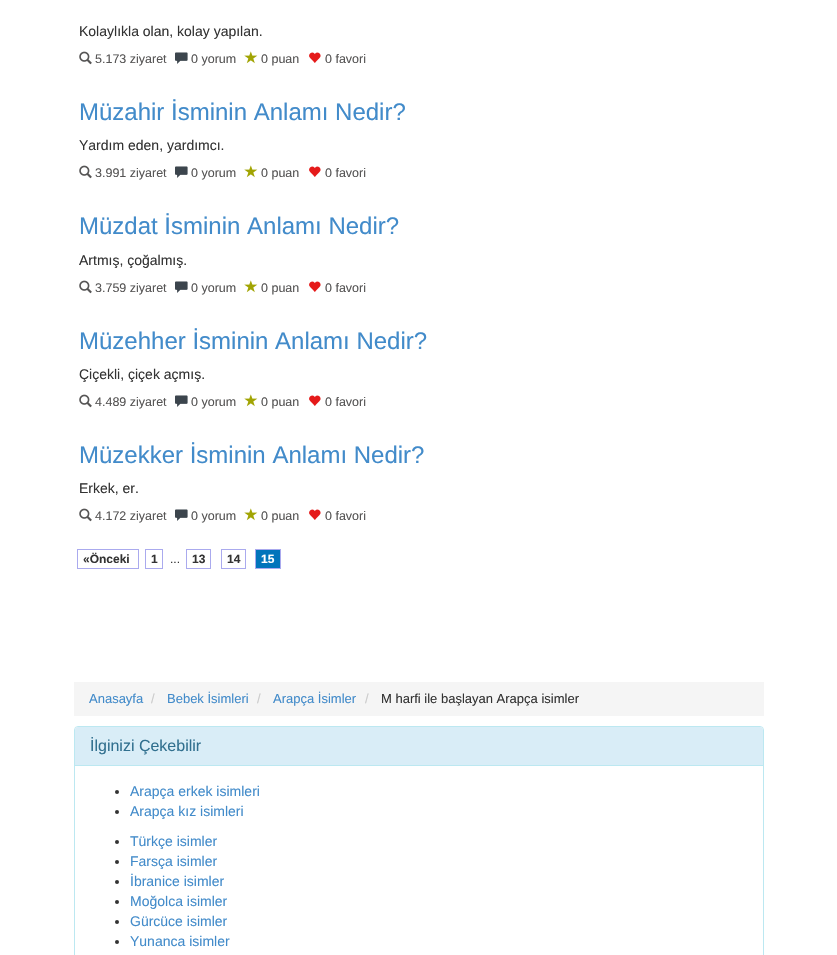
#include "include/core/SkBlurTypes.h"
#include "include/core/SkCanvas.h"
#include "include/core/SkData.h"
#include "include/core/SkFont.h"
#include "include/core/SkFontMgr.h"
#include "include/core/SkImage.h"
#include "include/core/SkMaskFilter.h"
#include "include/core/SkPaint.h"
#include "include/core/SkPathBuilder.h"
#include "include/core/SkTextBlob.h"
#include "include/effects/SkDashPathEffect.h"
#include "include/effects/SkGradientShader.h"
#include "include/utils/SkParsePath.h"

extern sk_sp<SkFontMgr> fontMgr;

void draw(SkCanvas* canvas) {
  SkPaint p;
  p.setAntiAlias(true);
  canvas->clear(SK_ColorWHITE);
  canvas->drawImageRect(SkImages::DeferredFromEncodedData(SkData::MakeFromFileName("images/1.png")), SkRect::MakeLTRB(79, 51, 92, 65), SkSamplingOptions());
  canvas->drawImageRect(SkImages::DeferredFromEncodedData(SkData::MakeFromFileName("images/2.png")), SkRect::MakeLTRB(175, 52, 188, 64), SkSamplingOptions());
  canvas->drawImageRect(SkImages::DeferredFromEncodedData(SkData::MakeFromFileName("images/3.png")), SkRect::MakeLTRB(244, 51, 258, 64), SkSamplingOptions());
  canvas->drawImageRect(SkImages::DeferredFromEncodedData(SkData::MakeFromFileName("images/4.png")), SkRect::MakeLTRB(309, 52, 321, 63), SkSamplingOptions());
  canvas->drawImageRect(SkImages::DeferredFromEncodedData(SkData::MakeFromFileName("images/1.png")), SkRect::MakeLTRB(79, 165, 92, 179), SkSamplingOptions());
  canvas->drawImageRect(SkImages::DeferredFromEncodedData(SkData::MakeFromFileName("images/2.png")), SkRect::MakeLTRB(175, 166, 188, 178), SkSamplingOptions());
  canvas->drawImageRect(SkImages::DeferredFromEncodedData(SkData::MakeFromFileName("images/3.png")), SkRect::MakeLTRB(244, 165, 258, 178), SkSamplingOptions());
  canvas->drawImageRect(SkImages::DeferredFromEncodedData(SkData::MakeFromFileName("images/4.png")), SkRect::MakeLTRB(309, 166, 321, 177), SkSamplingOptions());
  canvas->drawImageRect(SkImages::DeferredFromEncodedData(SkData::MakeFromFileName("images/1.png")), SkRect::MakeLTRB(79, 280, 92, 294), SkSamplingOptions());
  canvas->drawImageRect(SkImages::DeferredFromEncodedData(SkData::MakeFromFileName("images/2.png")), SkRect::MakeLTRB(175, 281, 188, 293), SkSamplingOptions());
  canvas->drawImageRect(SkImages::DeferredFromEncodedData(SkData::MakeFromFileName("images/3.png")), SkRect::MakeLTRB(244, 280, 258, 293), SkSamplingOptions());
  canvas->drawImageRect(SkImages::DeferredFromEncodedData(SkData::MakeFromFileName("images/4.png")), SkRect::MakeLTRB(309, 281, 321, 292), SkSamplingOptions());
  canvas->drawImageRect(SkImages::DeferredFromEncodedData(SkData::MakeFromFileName("images/1.png")), SkRect::MakeLTRB(79, 394, 92, 408), SkSamplingOptions());
  canvas->drawImageRect(SkImages::DeferredFromEncodedData(SkData::MakeFromFileName("images/2.png")), SkRect::MakeLTRB(175, 395, 188, 407), SkSamplingOptions());
  canvas->drawImageRect(SkImages::DeferredFromEncodedData(SkData::MakeFromFileName("images/3.png")), SkRect::MakeLTRB(244, 394, 258, 407), SkSamplingOptions());
  canvas->drawImageRect(SkImages::DeferredFromEncodedData(SkData::MakeFromFileName("images/4.png")), SkRect::MakeLTRB(309, 395, 321, 406), SkSamplingOptions());
  canvas->drawImageRect(SkImages::DeferredFromEncodedData(SkData::MakeFromFileName("images/1.png")), SkRect::MakeLTRB(79, 508, 92, 522), SkSamplingOptions());
  canvas->drawImageRect(SkImages::DeferredFromEncodedData(SkData::MakeFromFileName("images/2.png")), SkRect::MakeLTRB(175, 509, 188, 521), SkSamplingOptions());
  canvas->drawImageRect(SkImages::DeferredFromEncodedData(SkData::MakeFromFileName("images/3.png")), SkRect::MakeLTRB(244, 508, 258, 521), SkSamplingOptions());
  canvas->drawImageRect(SkImages::DeferredFromEncodedData(SkData::MakeFromFileName("images/4.png")), SkRect::MakeLTRB(309, 509, 321, 520), SkSamplingOptions());
  p.setStyle(SkPaint::kStroke_Style);
  p.setStrokeWidth(1);
  p.setColor(SkColorSetRGB(170, 170, 238));
  canvas->drawRect(SkRect::MakeLTRB(77.5f, 549.5f, 138.5f, 568.5f), p);
  canvas->drawRect(SkRect::MakeLTRB(145.5f, 549.5f, 162.5f, 568.5f), p);
  canvas->drawRect(SkRect::MakeLTRB(186.5f, 549.5f, 210.5f, 568.5f), p);
  canvas->drawRect(SkRect::MakeLTRB(221.5f, 549.5f, 245.5f, 568.5f), p);
  p.setStyle(SkPaint::kFill_Style);
  p.setColor(SkColorSetRGB(1, 116, 187));
  canvas->drawRect(SkRect::MakeLTRB(255.5f, 549.5f, 280.5f, 568.5f), p);
  p.setStyle(SkPaint::kStroke_Style);
  p.setColor(SkColorSetRGB(170, 170, 238));
  canvas->drawRect(SkRect::MakeLTRB(255.5f, 549.5f, 280.5f, 568.5f), p);
  p.setStyle(SkPaint::kFill_Style);
  p.setColor(SkColorSetRGB(245, 245, 245));
  canvas->drawRect(SkRect::MakeLTRB(74, 682, 764, 716), p);
  p.setStyle(SkPaint::kStroke_Style);
  p.setColor(SkColorSetRGB(188, 232, 241));
  canvas->drawRoundRect(SkRect::MakeLTRB(74.5f, 726.5f, 763.5f, 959.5f), 3.5f, 3.5f, p);
  p.setStyle(SkPaint::kFill_Style);
  p.setColor(SkColorSetRGB(217, 237, 247));
  canvas->drawPath(SkPathBuilder().moveTo(78, 727).lineTo(760, 727).cubicTo(761.5f, 727, 763, 728.5f, 763, 730).lineTo(763, 766).lineTo(75, 766).lineTo(75, 730).cubicTo(75, 728.5f, 76.5f, 727, 78, 727).close().detach(), p);
  p.setColor(SkColorSetRGB(188, 232, 241));
  canvas->drawRect(SkRect::MakeLTRB(75, 765, 763, 766), p);
  p.setColor(SkColorSetRGB(51, 51, 51));
  canvas->drawCircle(117, 792, 2, p);
  canvas->drawCircle(117, 812, 2, p);
  canvas->drawCircle(117, 842, 2, p);
  canvas->drawCircle(117, 862, 2, p);
  canvas->drawCircle(117, 882, 2, p);
  canvas->drawCircle(117, 902, 2, p);
  canvas->drawCircle(117, 922, 2, p);
  canvas->drawCircle(117, 942, 2, p);
  SkFont font1(fontMgr->matchFamilyStyle("Liberation Sans", SkFontStyle::Normal()), 14);
  font1.setSubpixel(true);
  canvas->drawString("Kolaylıkla olan, kolay yapılan.", 79, 36, font1, p);
  SkFont font2(fontMgr->matchFamilyStyle("Liberation Sans", SkFontStyle::Normal()), 12.5f);
  font2.setSubpixel(true);
  p.setColor(SkColorSetRGB(86, 85, 85));
  canvas->drawString("5.173 ziyaret", 95, 63, font2, p);
  canvas->drawString("0 yorum", 191, 63, font2, p);
  canvas->drawString("0 puan", 261, 63, font2, p);
  canvas->drawString("0 favori", 325, 63, font2, p);
  SkFont font3(fontMgr->matchFamilyStyle("Liberation Sans", SkFontStyle::Normal()), 24);
  font3.setSubpixel(true);
  p.setColor(SkColorSetRGB(66, 139, 202));
  canvas->drawString("Müzahir İsminin Anlamı Nedir?", 79, 120, font3, p);
  p.setColor(SkColorSetRGB(51, 51, 51));
  canvas->drawString("Yardım eden, yardımcı.", 79, 150, font1, p);
  p.setColor(SkColorSetRGB(86, 85, 85));
  canvas->drawString("3.991 ziyaret", 95, 177, font2, p);
  canvas->drawString("0 yorum", 191, 177, font2, p);
  canvas->drawString("0 puan", 261, 177, font2, p);
  canvas->drawString("0 favori", 325, 177, font2, p);
  p.setColor(SkColorSetRGB(66, 139, 202));
  canvas->drawString("Müzdat İsminin Anlamı Nedir?", 79, 234, font3, p);
  p.setColor(SkColorSetRGB(51, 51, 51));
  canvas->drawString("Artmış, çoğalmış.", 79, 265, font1, p);
  p.setColor(SkColorSetRGB(86, 85, 85));
  canvas->drawString("3.759 ziyaret", 95, 292, font2, p);
  canvas->drawString("0 yorum", 191, 292, font2, p);
  canvas->drawString("0 puan", 261, 292, font2, p);
  canvas->drawString("0 favori", 325, 292, font2, p);
  p.setColor(SkColorSetRGB(66, 139, 202));
  canvas->drawString("Müzehher İsminin Anlamı Nedir?", 79, 349, font3, p);
  p.setColor(SkColorSetRGB(51, 51, 51));
  canvas->drawString("Çiçekli, çiçek açmış.", 79, 379, font1, p);
  p.setColor(SkColorSetRGB(86, 85, 85));
  canvas->drawString("4.489 ziyaret", 95, 406, font2, p);
  canvas->drawString("0 yorum", 191, 406, font2, p);
  canvas->drawString("0 puan", 261, 406, font2, p);
  canvas->drawString("0 favori", 325, 406, font2, p);
  p.setColor(SkColorSetRGB(66, 139, 202));
  canvas->drawString("Müzekker İsminin Anlamı Nedir?", 79, 463, font3, p);
  p.setColor(SkColorSetRGB(51, 51, 51));
  canvas->drawString("Erkek, er.", 79, 493, font1, p);
  p.setColor(SkColorSetRGB(86, 85, 85));
  canvas->drawString("4.172 ziyaret", 95, 520, font2, p);
  canvas->drawString("0 yorum", 191, 520, font2, p);
  canvas->drawString("0 puan", 261, 520, font2, p);
  canvas->drawString("0 favori", 325, 520, font2, p);
  SkFont font4(fontMgr->matchFamilyStyle("Liberation Sans", SkFontStyle::Bold()), 12);
  font4.setSubpixel(true);
  p.setColor(SkColorSetRGB(51, 51, 51));
  canvas->drawString("«Önceki", 83, 563, font4, p);
  canvas->drawString("1", 151, 563, font4, p);
  SkFont font5(fontMgr->matchFamilyStyle("Liberation Sans", SkFontStyle::Normal()), 12);
  font5.setSubpixel(true);
  canvas->drawString("...", 170, 563, font5, p);
  canvas->drawString("13", 192, 563, font4, p);
  canvas->drawString("14", 227, 563, font4, p);
  p.setColor(SK_ColorWHITE);
  canvas->drawString("15", 261, 563, font4, p);
  SkFont font6(fontMgr->matchFamilyStyle("Liberation Sans", SkFontStyle::Normal()), 13);
  font6.setSubpixel(true);
  p.setColor(SkColorSetRGB(66, 139, 202));
  canvas->drawString("Anasayfa", 89, 703, font6, p);
  p.setColor(SkColorSetRGB(204, 204, 204));
  canvas->drawString("/", 151, 703, font6, p);
  p.setColor(SkColorSetRGB(66, 139, 202));
  canvas->drawString("Bebek İsimleri", 167, 703, font6, p);
  p.setColor(SkColorSetRGB(204, 204, 204));
  canvas->drawString("/", 257, 703, font6, p);
  p.setColor(SkColorSetRGB(66, 139, 202));
  canvas->drawString("Arapça İsimler", 273, 703, font6, p);
  p.setColor(SkColorSetRGB(204, 204, 204));
  canvas->drawString("/", 365, 703, font6, p);
  p.setColor(SkColorSetRGB(51, 51, 51));
  canvas->drawString("M harfi ile başlayan Arapça isimler", 381, 703, font6, p);
  SkFont font7(fontMgr->matchFamilyStyle("Liberation Sans", SkFontStyle::Normal()), 16);
  font7.setSubpixel(true);
  p.setColor(SkColorSetRGB(49, 112, 143));
  canvas->drawString("İlginizi Çekebilir", 90, 751, font7, p);
  p.setColor(SkColorSetRGB(66, 139, 202));
  canvas->drawString("Arapça erkek isimleri", 130, 796, font1, p);
  canvas->drawString("Arapça kız isimleri", 130, 816, font1, p);
  canvas->drawString("Türkçe isimler", 130, 846, font1, p);
  canvas->drawString("Farsça isimler", 130, 866, font1, p);
  canvas->drawString("İbranice isimler", 130, 886, font1, p);
  canvas->drawString("Moğolca isimler", 130, 906, font1, p);
  canvas->drawString("Gürcüce isimler", 130, 926, font1, p);
  canvas->drawString("Yunanca isimler", 130, 946, font1, p);
}
